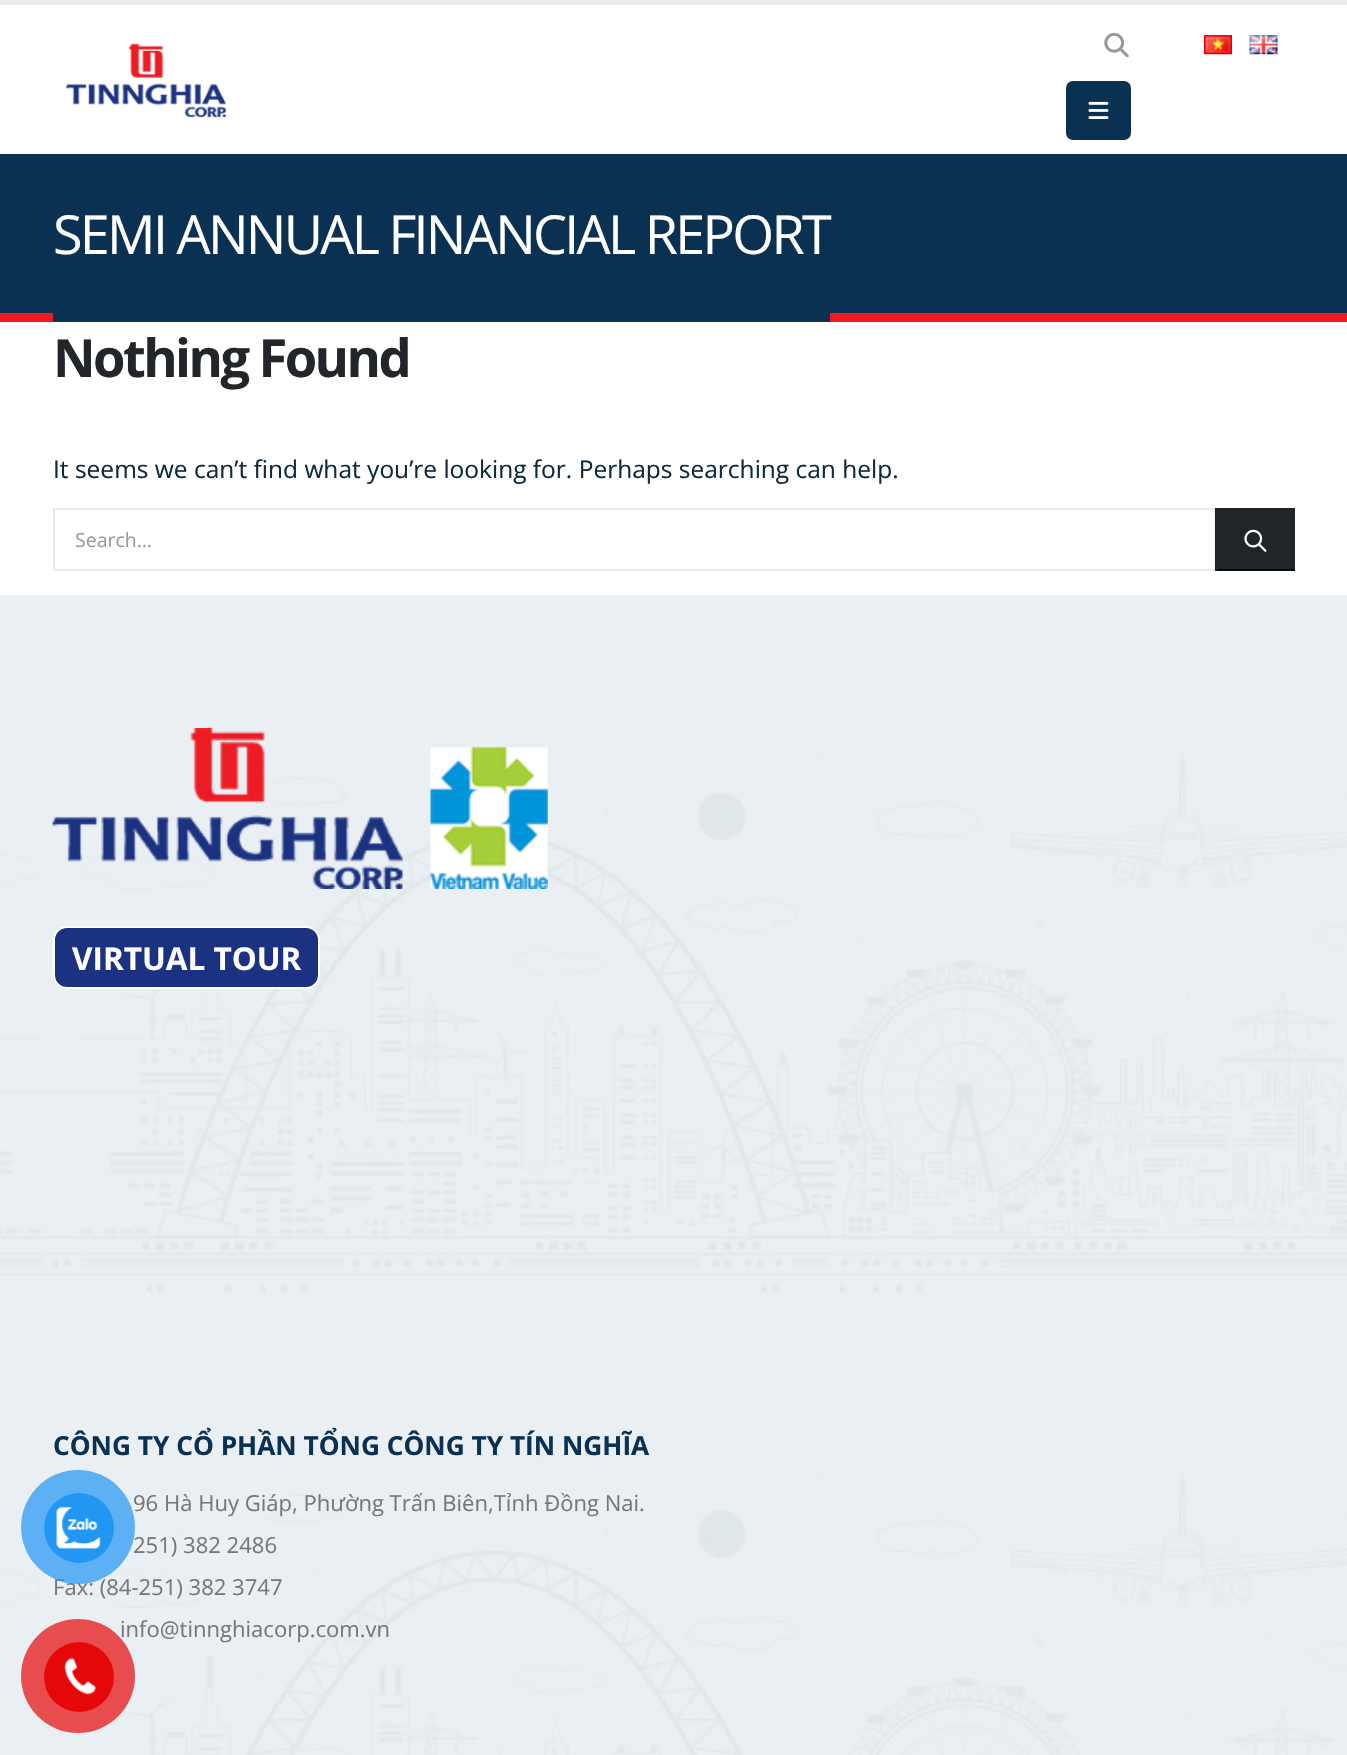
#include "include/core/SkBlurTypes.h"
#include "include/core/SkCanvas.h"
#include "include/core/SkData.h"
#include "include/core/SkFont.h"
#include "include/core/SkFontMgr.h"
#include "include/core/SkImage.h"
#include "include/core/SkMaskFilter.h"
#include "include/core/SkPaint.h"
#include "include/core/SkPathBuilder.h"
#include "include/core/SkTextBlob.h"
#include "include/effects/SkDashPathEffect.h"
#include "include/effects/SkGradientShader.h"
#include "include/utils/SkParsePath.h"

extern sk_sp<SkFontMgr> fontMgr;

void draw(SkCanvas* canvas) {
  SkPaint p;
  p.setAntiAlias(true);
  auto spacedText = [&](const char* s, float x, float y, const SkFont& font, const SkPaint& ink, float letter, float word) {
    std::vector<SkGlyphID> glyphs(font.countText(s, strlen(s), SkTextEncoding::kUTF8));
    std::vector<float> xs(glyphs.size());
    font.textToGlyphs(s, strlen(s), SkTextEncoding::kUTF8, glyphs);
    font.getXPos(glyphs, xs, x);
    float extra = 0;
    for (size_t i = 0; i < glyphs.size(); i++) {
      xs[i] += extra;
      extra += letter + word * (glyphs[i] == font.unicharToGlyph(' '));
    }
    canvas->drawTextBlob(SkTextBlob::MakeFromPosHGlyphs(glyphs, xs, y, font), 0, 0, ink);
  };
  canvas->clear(SK_ColorWHITE);
  p.setColor(SkColorSetRGB(237, 237, 237));
  canvas->drawRect(SkRect::MakeLTRB(0, 0, 1347, 5), p);
  canvas->drawImageRect(SkImages::DeferredFromEncodedData(SkData::MakeFromFileName("images/1.png")), SkRect::MakeLTRB(65, 43, 226, 118), SkSamplingOptions());
  canvas->drawImageRect(SkImages::DeferredFromEncodedData(SkData::MakeFromFileName("images/2.png")), SkRect::MakeLTRB(1104, 32, 1129, 58), SkSamplingOptions());
  canvas->drawImageRect(SkImages::DeferredFromEncodedData(SkData::MakeFromFileName("images/3.png")), SkRect::MakeLTRB(1204, 35, 1232, 55), SkSamplingOptions());
  canvas->drawImageRect(SkImages::DeferredFromEncodedData(SkData::MakeFromFileName("images/4.png")), SkRect::MakeLTRB(1249, 35, 1278, 55), SkSamplingOptions());
  p.setColor(SkColorSetRGB(10, 49, 82));
  canvas->drawRoundRect(SkRect::MakeLTRB(1066, 81, 1131, 140), 7, 7, p);
  canvas->drawImageRect(SkImages::DeferredFromEncodedData(SkData::MakeFromFileName("images/5.png")), SkRect::MakeLTRB(1088, 101, 1109, 119), SkSamplingOptions());
  canvas->drawRect(SkRect::MakeLTRB(0, 154, 1347, 313), p);
  p.setColor(SkColorSetRGB(241, 25, 36));
  canvas->drawRect(SkRect::MakeLTRB(0, 313, 1347, 322), p);
  p.setColor(SkColorSetRGB(10, 49, 82));
  canvas->drawRect(SkRect::MakeLTRB(53, 313, 830, 322), p);
  p.setStyle(SkPaint::kStroke_Style);
  p.setStrokeWidth(2);
  p.setColor(SkColorSetRGB(235, 235, 235));
  canvas->drawRect(SkRect::MakeLTRB(54, 509, 1215, 570), p);
  p.setStyle(SkPaint::kFill_Style);
  p.setColor(SkColorSetRGB(33, 37, 41));
  canvas->drawRect(SkRect::MakeLTRB(1217, 508, 1295, 569), p);
  p.setColor(SkColorSetRGB(11, 12, 13));
  canvas->drawRect(SkRect::MakeLTRB(1215, 569, 1295, 571), p);
  p.setColor(SkColorSetRGB(33, 37, 41));
  canvas->drawRect(SkRect::MakeLTRB(1215, 508, 1217, 571), p);
  canvas->drawImageRect(SkImages::DeferredFromEncodedData(SkData::MakeFromFileName("images/6.png")), SkRect::MakeLTRB(1244, 529, 1267, 552), SkSamplingOptions());
  canvas->drawImageRect(SkImages::DeferredFromEncodedData(SkData::MakeFromFileName("images/7.png")), SkRect::MakeLTRB(0, 595, 1347, 1755), SkSamplingOptions());
  canvas->drawImageRect(SkImages::DeferredFromEncodedData(SkData::MakeFromFileName("images/8.png")), SkRect::MakeLTRB(52, 728, 548, 889), SkSamplingOptions());
  p.setColor(SkColorSetRGB(27, 50, 129));
  canvas->drawRoundRect(SkRect::MakeLTRB(54, 927, 319, 988), 13, 13, p);
  p.setStyle(SkPaint::kStroke_Style);
  p.setColor(SK_ColorWHITE);
  canvas->drawRoundRect(SkRect::MakeLTRB(54, 927, 319, 988), 13, 13, p);
  SkFont font1(fontMgr->matchFamilyStyle("Open Sans", SkFontStyle::Normal()), 53.9f);
  font1.setSubpixel(true);
  p.setStyle(SkPaint::kFill_Style);
  spacedText("SEMI ANNUAL FINANCIAL REPORT", 53, 254, font1, p, -2.7f, 0);
  SkFont font2(fontMgr->matchFamilyStyle("Open Sans", SkFontStyle::Bold()), 52.5f);
  font2.setSubpixel(true);
  p.setColor(SkColorSetRGB(34, 37, 41));
  spacedText("Nothing Found", 53, 377, font2, p, -2.6f, 0);
  SkFont font3(fontMgr->matchFamilyStyle("Open Sans", SkFontStyle::Normal()), 24.5f);
  font3.setSubpixel(true);
  p.setColor(SkColorSetRGB(13, 42, 60));
  canvas->drawString("It seems we can’t find what you’re looking for. Perhaps searching can help.", 53, 478, font3, p);
  SkFont font4(fontMgr->matchFamilyStyle("Open Sans", SkFontStyle::Normal()), 19.5f);
  font4.setSubpixel(true);
  p.setColor(SkColorSetRGB(153, 153, 153));
  canvas->drawString("Search…", 75, 547, font4, p);
  SkFont font5(fontMgr->matchFamilyStyle("Open Sans", SkFontStyle::Bold()), 31.5f);
  font5.setSubpixel(true);
  p.setColor(SK_ColorWHITE);
  canvas->drawString("VIRTUAL TOUR", 72, 970, font5, p);
  SkFont font6(fontMgr->matchFamilyStyle("Open Sans", SkFontStyle::Bold()), 26.25f);
  font6.setSubpixel(true);
  p.setColor(SkColorSetRGB(10, 49, 82));
  canvas->drawString("CÔNG TY CỔ PHẦN TỔNG CÔNG TY TÍN NGHĨA", 53, 1455, font6, p);
  SkFont font7(fontMgr->matchFamilyStyle("Open Sans", SkFontStyle::Normal()), 22.05f);
  font7.setSubpixel(true);
  p.setColor(SkColorSetRGB(119, 119, 119));
  canvas->drawString("96 Hà Huy Giáp, Phường Trấn Biên,Tỉnh Đồng Nai.", 133, 1511, font7, p);
  canvas->drawString("251) 382 2486", 133, 1553, font7, p);
  canvas->drawString("Fax: (84-251) 382 3747", 53, 1595, font7, p);
  canvas->drawString("info@tinnghiacorp.com.vn", 120, 1637, font7, p);
  p.setColor(SkColorSetARGB(179, 33, 150, 243));
  canvas->drawCircle(78, 1527, 57, p);
  p.setColor(SkColorSetRGB(33, 150, 243));
  canvas->drawCircle(79, 1528, 35, p);
  canvas->drawImageRect(SkImages::DeferredFromEncodedData(SkData::MakeFromFileName("images/9.png")), SkRect::MakeLTRB(56, 1506, 101, 1549), SkSamplingOptions());
  p.setColor(SkColorSetARGB(179, 230, 8, 8));
  canvas->drawCircle(78, 1676, 57, p);
  p.setColor(SkColorSetRGB(230, 8, 8));
  canvas->drawCircle(79, 1677, 35, p);
  canvas->drawImageRect(SkImages::DeferredFromEncodedData(SkData::MakeFromFileName("images/10.png")), SkRect::MakeLTRB(64, 1657, 96, 1695), SkSamplingOptions());
}
